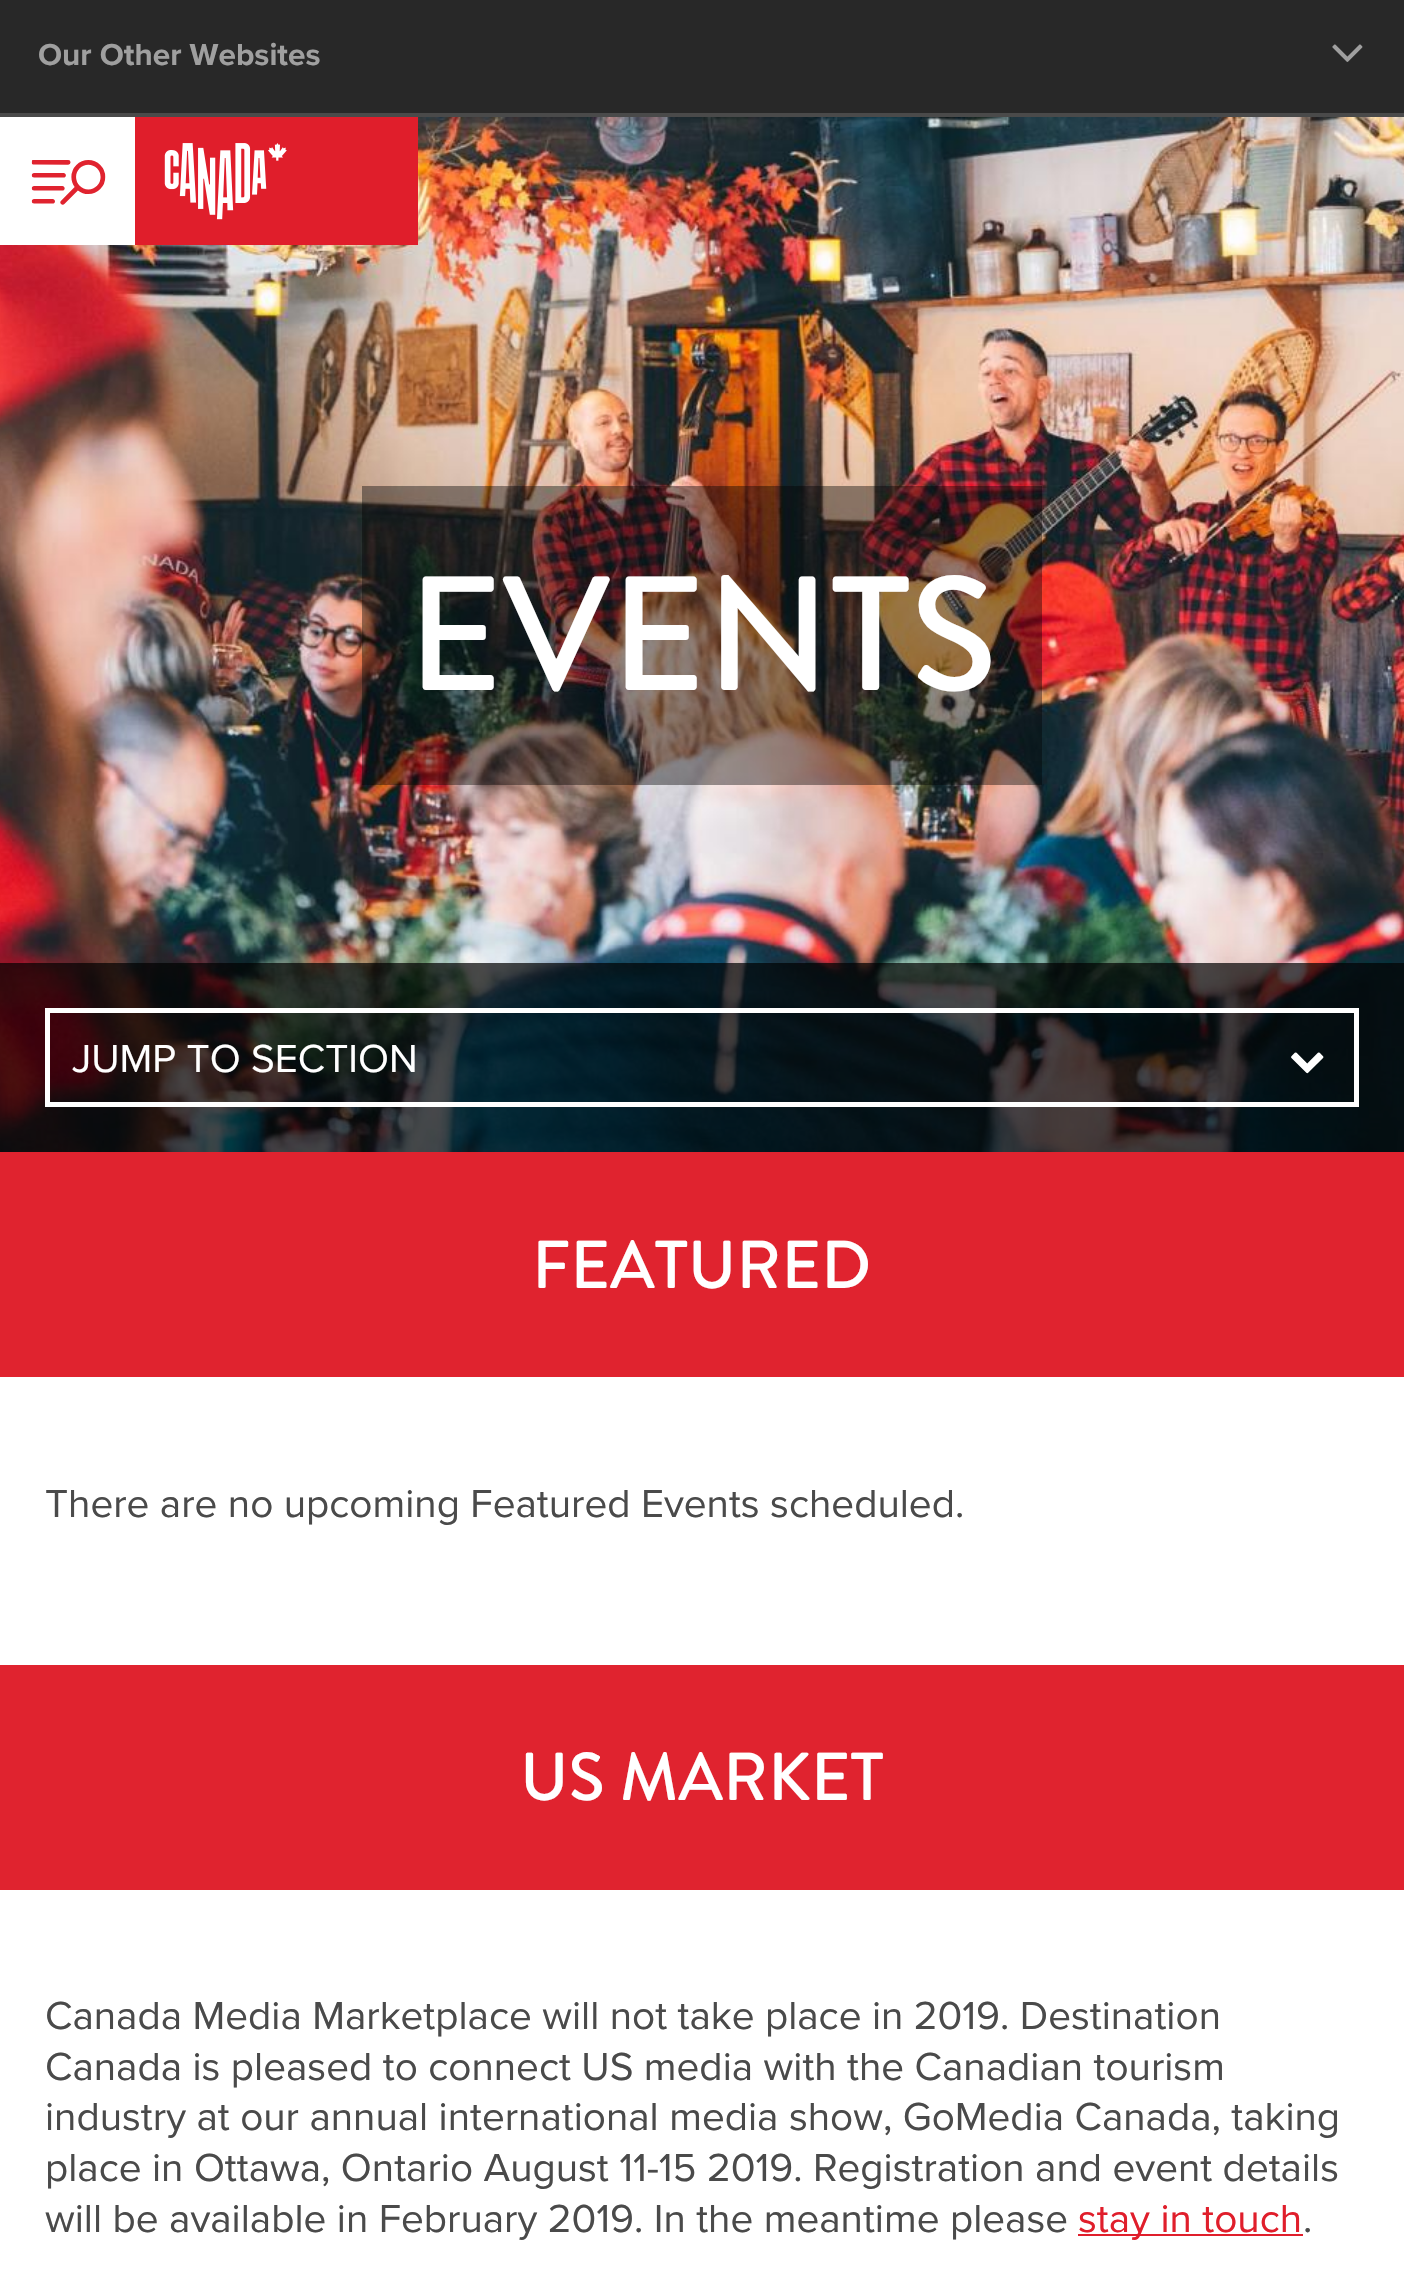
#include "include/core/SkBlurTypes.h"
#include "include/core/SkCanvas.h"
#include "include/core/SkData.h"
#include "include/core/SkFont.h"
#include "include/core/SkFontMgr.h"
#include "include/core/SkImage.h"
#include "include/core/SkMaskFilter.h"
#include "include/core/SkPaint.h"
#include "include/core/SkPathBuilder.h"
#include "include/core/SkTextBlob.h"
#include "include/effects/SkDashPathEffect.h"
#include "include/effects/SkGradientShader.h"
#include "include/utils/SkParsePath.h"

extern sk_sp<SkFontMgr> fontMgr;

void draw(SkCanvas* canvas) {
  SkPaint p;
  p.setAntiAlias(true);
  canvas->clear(SK_ColorWHITE);
  p.setColor(SkColorSetRGB(40, 40, 40));
  canvas->drawRect(SkRect::MakeLTRB(0, 0, 1404, 113), p);
  canvas->drawImageRect(SkImages::DeferredFromEncodedData(SkData::MakeFromFileName("images/1.png")), SkRect::MakeLTRB(1332, 44, 1363, 62), SkSamplingOptions());
  p.setColor(SkColorSetRGB(74, 74, 74));
  canvas->drawRect(SkRect::MakeLTRB(0, 113, 1404, 117), p);
  canvas->drawImageRect(SkImages::DeferredFromEncodedData(SkData::MakeFromFileName("images/4.png")), SkRect::MakeLTRB(0, 117, 1404, 1152), SkSamplingOptions());
  p.setColor(SK_ColorWHITE);
  canvas->drawRect(SkRect::MakeLTRB(0, 117, 135, 245), p);
  canvas->drawImageRect(SkImages::DeferredFromEncodedData(SkData::MakeFromFileName("images/2.png")), SkRect::MakeLTRB(31, 160, 106, 205), SkSamplingOptions());
  p.setColor(SkColorSetRGB(224, 30, 43));
  canvas->drawRect(SkRect::MakeLTRB(135, 117, 164, 245), p);
  canvas->drawImageRect(SkImages::DeferredFromEncodedData(SkData::MakeFromFileName("images/3.png")), SkRect::MakeLTRB(164, 117, 418, 245), SkSamplingOptions());
  p.setColor(SkColorSetARGB(102, 0, 0, 0));
  canvas->drawRect(SkRect::MakeLTRB(362, 486, 1042, 785), p);
  p.setColor(SkColorSetARGB(179, 0, 0, 0));
  canvas->drawRect(SkRect::MakeLTRB(0, 963, 1404, 1152), p);
  p.setStyle(SkPaint::kStroke_Style);
  p.setStrokeWidth(5);
  p.setColor(SK_ColorWHITE);
  canvas->drawRect(SkRect::MakeLTRB(47.5f, 1010.5f, 1356.5f, 1104.5f), p);
  canvas->drawImageRect(SkImages::DeferredFromEncodedData(SkData::MakeFromFileName("images/5.png")), SkRect::MakeLTRB(1291, 1052, 1324, 1074), SkSamplingOptions());
  p.setStyle(SkPaint::kFill_Style);
  p.setColor(SkColorSetRGB(224, 35, 47));
  canvas->drawRect(SkRect::MakeLTRB(0, 1152, 1404, 1377), p);
  canvas->drawRect(SkRect::MakeLTRB(0, 1665, 1404, 1890), p);
  p.setColor(SkColorSetRGB(224, 30, 43));
  canvas->drawRect(SkRect::MakeLTRB(1078, 2234, 1303, 2236), p);
  SkFont font1(fontMgr->matchFamilyStyle("Proxima Nova", SkFontStyle::Bold()), 31.5f);
  font1.setSubpixel(true);
  p.setColor(SkColorSetRGB(159, 159, 159));
  canvas->drawString("Our Other Websites", 38, 65, font1, p);
  SkFont font2(fontMgr->matchFamilyStyle("Brandon Grotesque", SkFontStyle(500, SkFontStyle::kNormal_Width, SkFontStyle::kUpright_Slant)), 162);
  font2.setSubpixel(true);
  p.setColor(SK_ColorWHITE);
  canvas->drawString("EVENTS", 407, 690, font2, p);
  SkFont font3(fontMgr->matchFamilyStyle("Proxima Nova", SkFontStyle::Normal()), 40.5f);
  font3.setSubpixel(true);
  canvas->drawString("JUMP TO SECTION", 72, 1072, font3, p);
  SkFont font4(fontMgr->matchFamilyStyle("Brandon Grotesque", SkFontStyle(500, SkFontStyle::kNormal_Width, SkFontStyle::kUpright_Slant)), 67.5f);
  font4.setSubpixel(true);
  canvas->drawString("FEATURED", 532, 1288, font4, p);
  p.setColor(SkColorSetRGB(74, 74, 74));
  canvas->drawString("There are no upcoming Featured Events scheduled.", 45, 1517, font3, p);
  p.setColor(SK_ColorWHITE);
  canvas->drawString("US MARKET", 520, 1800, font4, p);
  p.setColor(SkColorSetRGB(74, 74, 74));
  canvas->drawString("Canada Media Marketplace will not take place in 2019. Destination", 45, 2029, font3, p);
  canvas->drawString("Canada is pleased to connect US media with the Canadian tourism", 45, 2080, font3, p);
  canvas->drawString("industry at our annual international media show, GoMedia Canada, taking", 45, 2130, font3, p);
  canvas->drawString("place in Ottawa, Ontario August 11-15 2019. Registration and event details", 45, 2181, font3, p);
  canvas->drawString("will be available in February 2019. In the meantime please", 45, 2232, font3, p);
  p.setColor(SkColorSetRGB(224, 30, 43));
  canvas->drawString("stay in touch", 1078, 2232, font3, p);
  p.setColor(SkColorSetRGB(74, 74, 74));
  canvas->drawString(".", 1303, 2232, font3, p);
}
